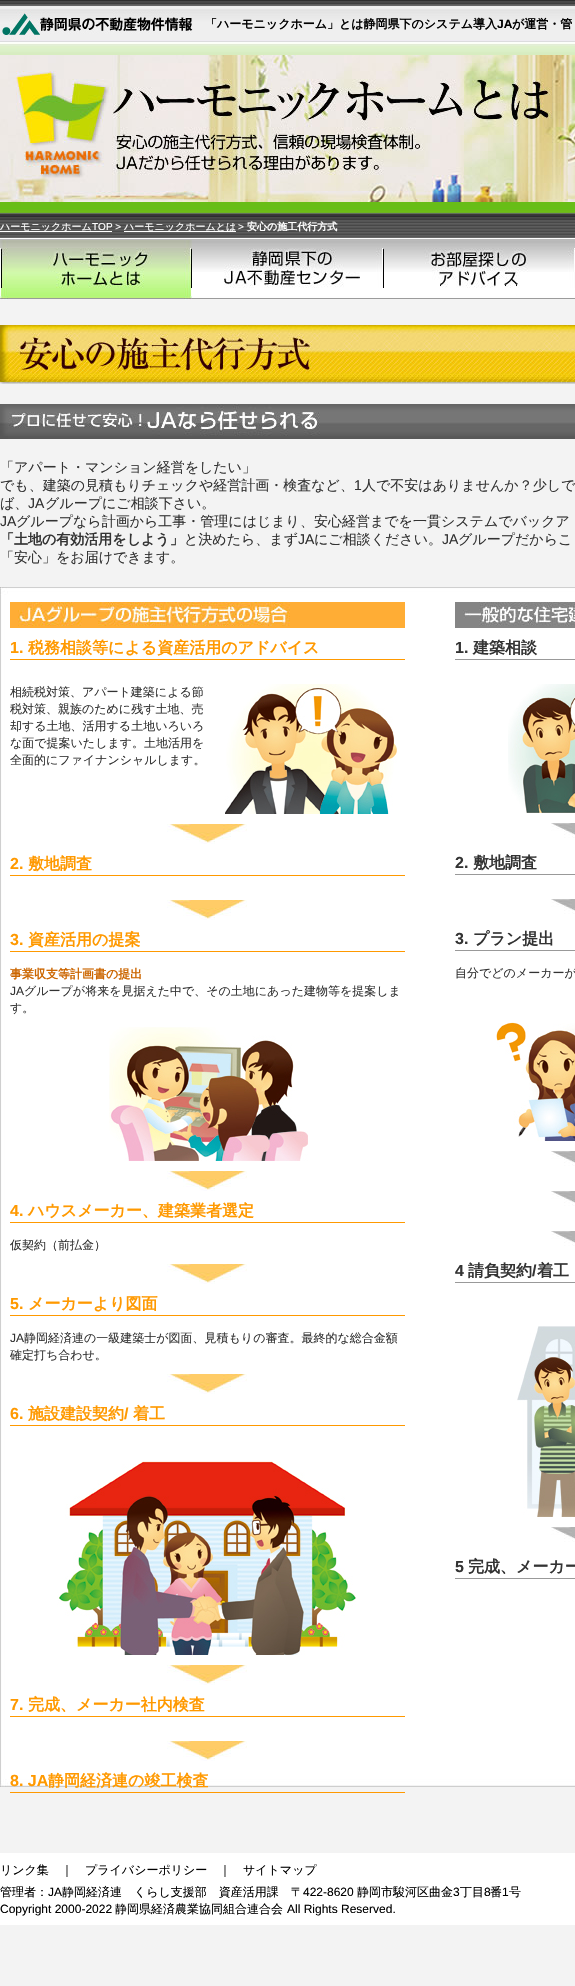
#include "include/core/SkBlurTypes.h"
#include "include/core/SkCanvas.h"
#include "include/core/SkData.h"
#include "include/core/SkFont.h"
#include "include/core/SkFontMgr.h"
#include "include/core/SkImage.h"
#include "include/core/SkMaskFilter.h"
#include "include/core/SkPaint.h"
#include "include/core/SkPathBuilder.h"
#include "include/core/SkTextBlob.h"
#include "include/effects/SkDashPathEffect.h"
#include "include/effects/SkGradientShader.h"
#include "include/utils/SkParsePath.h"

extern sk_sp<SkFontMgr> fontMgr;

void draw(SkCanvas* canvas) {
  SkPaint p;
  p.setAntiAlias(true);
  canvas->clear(SkColorSetRGB(243, 243, 243));
  canvas->drawImageRect(SkImages::DeferredFromEncodedData(SkData::MakeFromFileName("images/1.png")), SkRect::MakeLTRB(0, 0, 575, 240), SkSamplingOptions());
  canvas->drawImageRect(SkImages::DeferredFromEncodedData(SkData::MakeFromFileName("images/2.png")), SkRect::MakeLTRB(0, 10, 193, 40), SkSamplingOptions());
  canvas->drawImageRect(SkImages::DeferredFromEncodedData(SkData::MakeFromFileName("images/3.png")), SkRect::MakeLTRB(0, 55, 575, 202), SkSamplingOptions());
  p.setColor(SK_ColorWHITE);
  canvas->drawRect(SkRect::MakeLTRB(0, 231, 112, 232), p);
  canvas->drawRect(SkRect::MakeLTRB(124, 231, 236, 232), p);
  canvas->drawImageRect(SkImages::DeferredFromEncodedData(SkData::MakeFromFileName("images/4.png")), SkRect::MakeLTRB(0, 240, 192, 300), SkSamplingOptions());
  canvas->drawImageRect(SkImages::DeferredFromEncodedData(SkData::MakeFromFileName("images/5.png")), SkRect::MakeLTRB(192, 240, 384, 300), SkSamplingOptions());
  canvas->drawImageRect(SkImages::DeferredFromEncodedData(SkData::MakeFromFileName("images/6.png")), SkRect::MakeLTRB(384, 240, 575, 300), SkSamplingOptions());
  canvas->drawImageRect(SkImages::DeferredFromEncodedData(SkData::MakeFromFileName("images/7.png")), SkRect::MakeLTRB(0, 325, 575, 384), SkSamplingOptions());
  canvas->drawImageRect(SkImages::DeferredFromEncodedData(SkData::MakeFromFileName("images/8.png")), SkRect::MakeLTRB(0, 404, 575, 439), SkSamplingOptions());
  canvas->drawImageRect(SkImages::DeferredFromEncodedData(SkData::MakeFromFileName("images/9.png")), SkRect::MakeLTRB(0, 587, 575, 1787), SkSamplingOptions());
  canvas->drawImageRect(SkImages::DeferredFromEncodedData(SkData::MakeFromFileName("images/10.png")), SkRect::MakeLTRB(10, 602, 405, 628), SkSamplingOptions());
  p.setColor(SkColorSetRGB(255, 153, 0));
  canvas->drawRect(SkRect::MakeLTRB(10, 659, 405, 660), p);
  canvas->drawImageRect(SkImages::DeferredFromEncodedData(SkData::MakeFromFileName("images/11.png")), SkRect::MakeLTRB(225, 684, 397, 814), SkSamplingOptions());
  canvas->drawImageRect(SkImages::DeferredFromEncodedData(SkData::MakeFromFileName("images/12.png")), SkRect::MakeLTRB(167, 824, 247, 844), SkSamplingOptions());
  canvas->drawRect(SkRect::MakeLTRB(10, 875, 405, 876), p);
  canvas->drawImageRect(SkImages::DeferredFromEncodedData(SkData::MakeFromFileName("images/12.png")), SkRect::MakeLTRB(167, 900, 247, 920), SkSamplingOptions());
  canvas->drawRect(SkRect::MakeLTRB(10, 951, 405, 952), p);
  canvas->drawImageRect(SkImages::DeferredFromEncodedData(SkData::MakeFromFileName("images/13.png")), SkRect::MakeLTRB(109, 1027, 308, 1161), SkSamplingOptions());
  canvas->drawImageRect(SkImages::DeferredFromEncodedData(SkData::MakeFromFileName("images/12.png")), SkRect::MakeLTRB(167, 1171, 247, 1191), SkSamplingOptions());
  canvas->drawRect(SkRect::MakeLTRB(10, 1222, 405, 1223), p);
  canvas->drawImageRect(SkImages::DeferredFromEncodedData(SkData::MakeFromFileName("images/12.png")), SkRect::MakeLTRB(167, 1264, 247, 1284), SkSamplingOptions());
  canvas->drawRect(SkRect::MakeLTRB(10, 1315, 405, 1316), p);
  canvas->drawImageRect(SkImages::DeferredFromEncodedData(SkData::MakeFromFileName("images/12.png")), SkRect::MakeLTRB(167, 1374, 247, 1394), SkSamplingOptions());
  canvas->drawRect(SkRect::MakeLTRB(10, 1425, 405, 1426), p);
  canvas->drawImageRect(SkImages::DeferredFromEncodedData(SkData::MakeFromFileName("images/14.png")), SkRect::MakeLTRB(57, 1461, 356, 1655), SkSamplingOptions());
  canvas->drawImageRect(SkImages::DeferredFromEncodedData(SkData::MakeFromFileName("images/12.png")), SkRect::MakeLTRB(167, 1665, 247, 1685), SkSamplingOptions());
  canvas->drawRect(SkRect::MakeLTRB(10, 1716, 405, 1717), p);
  canvas->drawImageRect(SkImages::DeferredFromEncodedData(SkData::MakeFromFileName("images/12.png")), SkRect::MakeLTRB(167, 1741, 247, 1761), SkSamplingOptions());
  canvas->drawRect(SkRect::MakeLTRB(10, 1792, 405, 1793), p);
  canvas->drawImageRect(SkImages::DeferredFromEncodedData(SkData::MakeFromFileName("images/15.png")), SkRect::MakeLTRB(455, 602, 575, 628), SkSamplingOptions());
  p.setColor(SkColorSetRGB(153, 153, 153));
  canvas->drawRect(SkRect::MakeLTRB(455, 659, 575, 660), p);
  canvas->drawImageRect(SkImages::DeferredFromEncodedData(SkData::MakeFromFileName("images/16.png")), SkRect::MakeLTRB(508, 684, 575, 813), SkSamplingOptions());
  canvas->drawImageRect(SkImages::DeferredFromEncodedData(SkData::MakeFromFileName("images/17.png")), SkRect::MakeLTRB(551, 823, 575, 838), SkSamplingOptions());
  canvas->drawRect(SkRect::MakeLTRB(455, 874, 575, 875), p);
  canvas->drawImageRect(SkImages::DeferredFromEncodedData(SkData::MakeFromFileName("images/17.png")), SkRect::MakeLTRB(551, 899, 575, 914), SkSamplingOptions());
  canvas->drawRect(SkRect::MakeLTRB(455, 950, 575, 951), p);
  canvas->drawImageRect(SkImages::DeferredFromEncodedData(SkData::MakeFromFileName("images/18.png")), SkRect::MakeLTRB(496, 1022, 575, 1141), SkSamplingOptions());
  canvas->drawImageRect(SkImages::DeferredFromEncodedData(SkData::MakeFromFileName("images/17.png")), SkRect::MakeLTRB(551, 1151, 575, 1166), SkSamplingOptions());
  canvas->drawImageRect(SkImages::DeferredFromEncodedData(SkData::MakeFromFileName("images/17.png")), SkRect::MakeLTRB(551, 1191, 575, 1206), SkSamplingOptions());
  canvas->drawImageRect(SkImages::DeferredFromEncodedData(SkData::MakeFromFileName("images/17.png")), SkRect::MakeLTRB(551, 1231, 575, 1246), SkSamplingOptions());
  canvas->drawRect(SkRect::MakeLTRB(455, 1282, 575, 1283), p);
  canvas->drawImageRect(SkImages::DeferredFromEncodedData(SkData::MakeFromFileName("images/19.png")), SkRect::MakeLTRB(517, 1326, 575, 1517), SkSamplingOptions());
  canvas->drawImageRect(SkImages::DeferredFromEncodedData(SkData::MakeFromFileName("images/17.png")), SkRect::MakeLTRB(551, 1527, 575, 1542), SkSamplingOptions());
  canvas->drawRect(SkRect::MakeLTRB(455, 1578, 575, 1579), p);
  p.setColor(SK_ColorWHITE);
  canvas->drawRect(SkRect::MakeLTRB(0, 1853, 575, 1925), p);
  SkFont font1(fontMgr->matchFamilyStyle("WenQuanYi Zen Hei", SkFontStyle::Bold()), 12);
  font1.setSubpixel(true);
  p.setColor(SK_ColorBLACK);
  canvas->drawString("「ハーモニックホーム」とは静岡県下のシステム導入", 205, 28, font1, p);
  SkFont font2(fontMgr->matchFamilyStyle("Liberation Sans", SkFontStyle::Bold()), 12);
  font2.setSubpixel(true);
  canvas->drawString("JA", 497, 28, font2, p);
  canvas->drawString("が運営・管", 512, 28, font1, p);
  SkFont font3(fontMgr->matchFamilyStyle("WenQuanYi Zen Hei", SkFontStyle(500, SkFontStyle::kNormal_Width, SkFontStyle::kUpright_Slant)), 10);
  font3.setSubpixel(true);
  p.setColor(SK_ColorWHITE);
  canvas->drawString("ハーモニックホーム", 0, 230, font3, p);
  SkFont font4(fontMgr->matchFamilyStyle("Liberation Sans", SkFontStyle::Normal()), 10);
  font4.setSubpixel(true);
  canvas->drawString("TOP >", 92, 230, font4, p);
  canvas->drawString("ハーモニックホームとは", 124, 230, font3, p);
  canvas->drawString(">", 238, 230, font4, p);
  SkFont font5(fontMgr->matchFamilyStyle("WenQuanYi Zen Hei", SkFontStyle::Bold()), 10);
  font5.setSubpixel(true);
  canvas->drawString("安心の施工代行方式", 247, 230, font5, p);
  SkFont font6(fontMgr->matchFamilyStyle("WenQuanYi Zen Hei", SkFontStyle(500, SkFontStyle::kNormal_Width, SkFontStyle::kUpright_Slant)), 14);
  font6.setSubpixel(true);
  p.setColor(SkColorSetRGB(51, 51, 51));
  canvas->drawString("「アパート・マンション経営をしたい」", 0, 472, font6, p);
  canvas->drawString("でも、建築の見積もりチェックや経営計画・検査など、", 0, 490, font6, p);
  SkFont font7(fontMgr->matchFamilyStyle("Liberation Sans", SkFontStyle::Normal()), 14);
  font7.setSubpixel(true);
  canvas->drawString("1", 354, 490, font7, p);
  canvas->drawString("人で不安はありませんか？少しで", 362, 490, font6, p);
  canvas->drawString("ば、", 0, 508, font6, p);
  canvas->drawString("JA", 28, 508, font7, p);
  canvas->drawString("グループにご相談下さい。", 45, 508, font6, p);
  canvas->drawString("JA", 0, 526, font7, p);
  canvas->drawString("グループなら計画から工事・管理にはじまり、安心経営までを一貫システムでバックア", 16, 526, font6, p);
  SkFont font8(fontMgr->matchFamilyStyle("WenQuanYi Zen Hei", SkFontStyle::Bold()), 14);
  font8.setSubpixel(true);
  canvas->drawString("「土地の有効活用をしよう」", 0, 544, font8, p);
  canvas->drawString("と決めたら、まず", 184, 544, font6, p);
  canvas->drawString("JA", 298, 544, font7, p);
  canvas->drawString("にご相談ください。", 314, 544, font6, p);
  canvas->drawString("JA", 442, 544, font7, p);
  canvas->drawString("グループだからこ", 458, 544, font6, p);
  canvas->drawString("「安心」をお届けできます。", 0, 562, font6, p);
  SkFont font9(fontMgr->matchFamilyStyle("Liberation Sans", SkFontStyle::Bold()), 16);
  font9.setSubpixel(true);
  p.setColor(SkColorSetRGB(255, 153, 0));
  canvas->drawString("1.", 10, 653, font9, p);
  SkFont font10(fontMgr->matchFamilyStyle("WenQuanYi Zen Hei", SkFontStyle::Bold()), 16);
  font10.setSubpixel(true);
  canvas->drawString("税務相談等による資産活用のアドバイス", 28, 653, font10, p);
  SkFont font11(fontMgr->matchFamilyStyle("WenQuanYi Zen Hei", SkFontStyle(500, SkFontStyle::kNormal_Width, SkFontStyle::kUpright_Slant)), 12);
  font11.setSubpixel(true);
  p.setColor(SkColorSetRGB(51, 51, 51));
  canvas->drawString("相続税対策、アパート建築による節", 10, 696, font11, p);
  canvas->drawString("税対策、親族のために残す土地、売", 10, 713, font11, p);
  canvas->drawString("却する土地、活用する土地いろいろ", 10, 730, font11, p);
  canvas->drawString("な面で提案いたします。土地活用を", 10, 747, font11, p);
  canvas->drawString("全面的にファイナンシャルします。", 10, 764, font11, p);
  p.setColor(SkColorSetRGB(255, 153, 0));
  canvas->drawString("2.", 10, 869, font9, p);
  canvas->drawString("敷地調査", 28, 869, font10, p);
  canvas->drawString("3.", 10, 945, font9, p);
  canvas->drawString("資産活用の提案", 28, 945, font10, p);
  p.setColor(SkColorSetRGB(204, 102, 0));
  canvas->drawString("事業収支等計画書の提出", 10, 978, font1, p);
  SkFont font12(fontMgr->matchFamilyStyle("Liberation Sans", SkFontStyle::Normal()), 12);
  font12.setSubpixel(true);
  p.setColor(SkColorSetRGB(51, 51, 51));
  canvas->drawString("JA", 10, 995, font12, p);
  canvas->drawString("グループが将来を見据えた中で、その土地にあった建物等を提案しま", 24, 995, font11, p);
  canvas->drawString("す。", 10, 1012, font11, p);
  p.setColor(SkColorSetRGB(255, 153, 0));
  canvas->drawString("4.", 10, 1216, font9, p);
  canvas->drawString("ハウスメーカー、建築業者選定", 28, 1216, font10, p);
  p.setColor(SkColorSetRGB(51, 51, 51));
  canvas->drawString("仮契約（前払金）", 10, 1249, font11, p);
  p.setColor(SkColorSetRGB(255, 153, 0));
  canvas->drawString("5.", 10, 1309, font9, p);
  canvas->drawString("メーカーより図面", 28, 1309, font10, p);
  p.setColor(SkColorSetRGB(51, 51, 51));
  canvas->drawString("JA", 10, 1342, font12, p);
  canvas->drawString("静岡経済連の一級建築士が図面、見積もりの審査。最終的な総合金額", 24, 1342, font11, p);
  canvas->drawString("確定打ち合わせ。", 10, 1359, font11, p);
  p.setColor(SkColorSetRGB(255, 153, 0));
  canvas->drawString("6.", 10, 1419, font9, p);
  canvas->drawString("施設建設契約", 28, 1419, font10, p);
  canvas->drawString("/", 124, 1419, font9, p);
  canvas->drawString("着工", 133, 1419, font10, p);
  canvas->drawString("7.", 10, 1710, font9, p);
  canvas->drawString("完成、メーカー社内検査", 28, 1710, font10, p);
  canvas->drawString("8. JA", 10, 1786, font9, p);
  canvas->drawString("静岡経済連の竣工検査", 48, 1786, font10, p);
  p.setColor(SkColorSetRGB(51, 51, 51));
  canvas->drawString("1.", 455, 653, font9, p);
  canvas->drawString("建築相談", 473, 653, font10, p);
  canvas->drawString("2.", 455, 868, font9, p);
  canvas->drawString("敷地調査", 473, 868, font10, p);
  canvas->drawString("3.", 455, 944, font9, p);
  canvas->drawString("プラン提出", 473, 944, font10, p);
  canvas->drawString("自分でどのメーカーが", 455, 977, font11, p);
  canvas->drawString("4", 455, 1276, font9, p);
  canvas->drawString("請負契約", 468, 1276, font10, p);
  canvas->drawString("/", 532, 1276, font9, p);
  canvas->drawString("着工", 537, 1276, font10, p);
  canvas->drawString("5", 455, 1572, font9, p);
  canvas->drawString("完成、メーカー", 468, 1572, font10, p);
  p.setColor(SK_ColorBLACK);
  canvas->drawString("リンク集", 0, 1874, font11, p);
  canvas->drawString("｜", 61, 1874, font11, p);
  canvas->drawString("プライバシーポリシー", 85, 1874, font11, p);
  canvas->drawString("｜", 219, 1874, font11, p);
  canvas->drawString("サイトマップ", 243, 1874, font11, p);
  canvas->drawString("管理者：", 0, 1896, font11, p);
  canvas->drawString("JA", 48, 1896, font12, p);
  canvas->drawString("静岡経済連　くらし支援部　資産活用課　〒", 62, 1896, font11, p);
  canvas->drawString("422-8620", 303, 1896, font12, p);
  canvas->drawString("静岡市駿河区曲金", 357, 1896, font11, p);
  canvas->drawString("3", 453, 1896, font12, p);
  canvas->drawString("丁目", 460, 1896, font11, p);
  canvas->drawString("8", 484, 1896, font12, p);
  canvas->drawString("番", 490, 1896, font11, p);
  canvas->drawString("1", 502, 1896, font12, p);
  canvas->drawString("号", 509, 1896, font11, p);
  canvas->drawString("Copyright 2000-2022", 0, 1913, font12, p);
  canvas->drawString("静岡県経済農業協同組合連合会", 115, 1913, font11, p);
  canvas->drawString("All Rights Reserved.", 287, 1913, font12, p);
}
